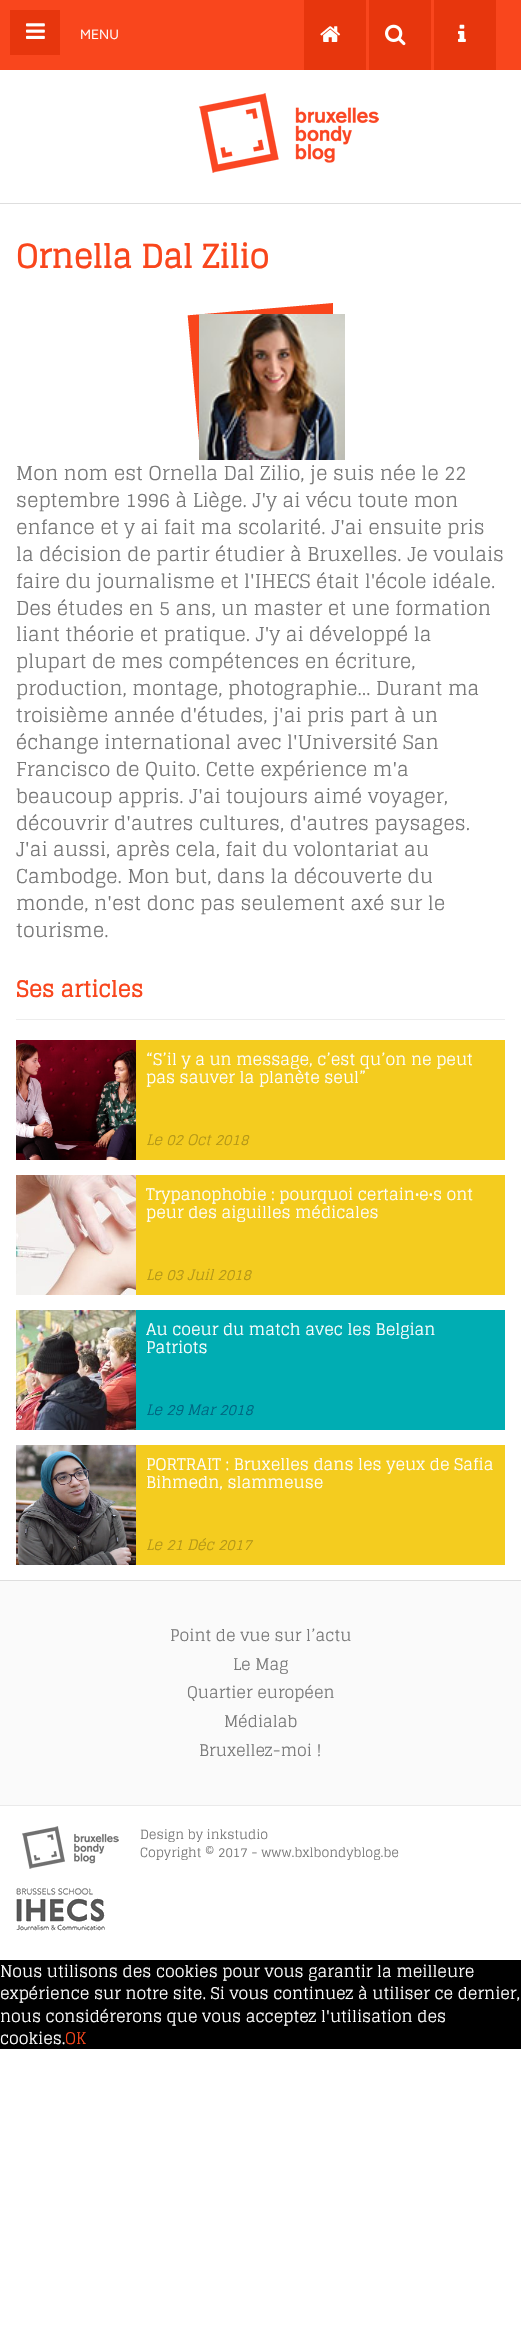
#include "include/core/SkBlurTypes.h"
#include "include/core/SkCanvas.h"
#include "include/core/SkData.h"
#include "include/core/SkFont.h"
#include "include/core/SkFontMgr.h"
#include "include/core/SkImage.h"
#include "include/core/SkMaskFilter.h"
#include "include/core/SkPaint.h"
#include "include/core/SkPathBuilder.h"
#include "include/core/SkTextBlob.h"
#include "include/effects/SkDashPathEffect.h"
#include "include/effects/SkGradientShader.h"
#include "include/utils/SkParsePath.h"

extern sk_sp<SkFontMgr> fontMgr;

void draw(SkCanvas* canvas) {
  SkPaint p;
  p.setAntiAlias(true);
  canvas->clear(SK_ColorWHITE);
  p.setColor(SkColorSetRGB(249, 70, 29));
  canvas->drawRect(SkRect::MakeLTRB(0, 0, 521, 70), p);
  p.setColor(SkColorSetRGB(231, 54, 13));
  canvas->drawRect(SkRect::MakeLTRB(10, 10, 60, 55), p);
  canvas->drawImageRect(SkImages::DeferredFromEncodedData(SkData::MakeFromFileName("images/1.png")), SkRect::MakeLTRB(26, 23, 45, 39), SkSamplingOptions());
  canvas->drawRect(SkRect::MakeLTRB(304, 0, 366, 70), p);
  canvas->drawImageRect(SkImages::DeferredFromEncodedData(SkData::MakeFromFileName("images/2.png")), SkRect::MakeLTRB(320, 26, 341, 42), SkSamplingOptions());
  canvas->drawRect(SkRect::MakeLTRB(369, 0, 431, 70), p);
  canvas->drawImageRect(SkImages::DeferredFromEncodedData(SkData::MakeFromFileName("images/3.png")), SkRect::MakeLTRB(385, 24, 406, 46), SkSamplingOptions());
  canvas->drawRect(SkRect::MakeLTRB(434, 0, 496, 70), p);
  canvas->drawImageRect(SkImages::DeferredFromEncodedData(SkData::MakeFromFileName("images/4.png")), SkRect::MakeLTRB(458, 24, 466, 42), SkSamplingOptions());
  p.setColor(SkColorSetRGB(222, 222, 222));
  canvas->drawRect(SkRect::MakeLTRB(0, 203, 521, 204), p);
  canvas->drawImageRect(SkImages::DeferredFromEncodedData(SkData::MakeFromFileName("images/5.png")), SkRect::MakeLTRB(199, 93, 379, 173), SkSamplingOptions());
  canvas->drawImageRect(SkImages::DeferredFromEncodedData(SkData::MakeFromFileName("images/6.png")), SkRect::MakeLTRB(187, 303, 333, 440), SkSamplingOptions());
  canvas->drawImageRect(SkImages::DeferredFromEncodedData(SkData::MakeFromFileName("images/7.png")), SkRect::MakeLTRB(199, 314, 345, 460), SkSamplingOptions());
  p.setColor(SkColorSetRGB(237, 237, 237));
  canvas->drawRect(SkRect::MakeLTRB(16, 1019, 505, 1020), p);
  p.setColor(SkColorSetRGB(244, 204, 31));
  canvas->drawRect(SkRect::MakeLTRB(136, 1040, 505, 1160), p);
  canvas->drawImageRect(SkImages::DeferredFromEncodedData(SkData::MakeFromFileName("images/8.png")), SkRect::MakeLTRB(16, 1040, 136, 1160), SkSamplingOptions());
  canvas->drawRect(SkRect::MakeLTRB(136, 1175, 505, 1295), p);
  canvas->drawImageRect(SkImages::DeferredFromEncodedData(SkData::MakeFromFileName("images/9.png")), SkRect::MakeLTRB(16, 1175, 136, 1295), SkSamplingOptions());
  p.setColor(SkColorSetRGB(0, 173, 179));
  canvas->drawRect(SkRect::MakeLTRB(136, 1310, 505, 1430), p);
  canvas->drawImageRect(SkImages::DeferredFromEncodedData(SkData::MakeFromFileName("images/10.png")), SkRect::MakeLTRB(16, 1310, 136, 1430), SkSamplingOptions());
  p.setColor(SkColorSetRGB(244, 204, 31));
  canvas->drawRect(SkRect::MakeLTRB(136, 1445, 505, 1565), p);
  canvas->drawImageRect(SkImages::DeferredFromEncodedData(SkData::MakeFromFileName("images/11.png")), SkRect::MakeLTRB(16, 1445, 136, 1565), SkSamplingOptions());
  p.setColor(SkColorSetRGB(250, 250, 250));
  canvas->drawRect(SkRect::MakeLTRB(0, 1581, 521, 1805), p);
  p.setColor(SkColorSetRGB(222, 222, 222));
  canvas->drawRect(SkRect::MakeLTRB(0, 1580, 521, 1581), p);
  p.setColor(SkColorSetRGB(234, 234, 234));
  canvas->drawRect(SkRect::MakeLTRB(0, 1805, 521, 1806), p);
  canvas->drawImageRect(SkImages::DeferredFromEncodedData(SkData::MakeFromFileName("images/12.png")), SkRect::MakeLTRB(22, 1826, 119, 1869), SkSamplingOptions());
  canvas->drawImageRect(SkImages::DeferredFromEncodedData(SkData::MakeFromFileName("images/13.png")), SkRect::MakeLTRB(16, 1888, 105, 1931), SkSamplingOptions());
  p.setColor(SK_ColorBLACK);
  canvas->drawRect(SkRect::MakeLTRB(0, 1960, 521, 2049), p);
  SkFont font1(fontMgr->matchFamilyStyle("Maven Pro", SkFontStyle::Normal()), 14);
  font1.setSubpixel(true);
  p.setColor(SK_ColorWHITE);
  canvas->drawString("MENU", 80, 39, font1, p);
  SkFont font2(fontMgr->matchFamilyStyle("Glegoo", SkFontStyle::Bold()), 32);
  font2.setSubpixel(true);
  p.setColor(SkColorSetRGB(249, 70, 28));
  canvas->drawString("Ornella Dal Zilio", 16, 268, font2, p);
  SkFont font3(fontMgr->matchFamilyStyle("Glegoo", SkFontStyle::Normal()), 19.2f);
  font3.setSubpixel(true);
  p.setColor(SkColorSetRGB(120, 120, 120));
  canvas->drawString("Mon nom est Ornella Dal Zilio, je suis née le 22", 16, 480, font3, p);
  canvas->drawString("septembre 1996 à Liège. J'y ai vécu toute mon", 16, 507, font3, p);
  canvas->drawString("enfance et y ai fait ma scolarité. J'ai ensuite pris", 16, 534, font3, p);
  canvas->drawString("la décision de partir étudier à Bruxelles. Je voulais", 16, 561, font3, p);
  canvas->drawString("faire du journalisme et l'IHECS était l'école idéale.", 16, 588, font3, p);
  canvas->drawString("Des études en 5 ans, un master et une formation", 16, 615, font3, p);
  canvas->drawString("liant théorie et pratique. J'y ai développé la", 16, 641, font3, p);
  canvas->drawString("plupart de mes compétences en écriture,", 16, 668, font3, p);
  canvas->drawString("production, montage, photographie… Durant ma", 16, 695, font3, p);
  canvas->drawString("troisième année d'études, j'ai pris part à un", 16, 722, font3, p);
  canvas->drawString("échange international avec l'Université San", 16, 749, font3, p);
  canvas->drawString("Francisco de Quito. Cette expérience m'a", 16, 776, font3, p);
  canvas->drawString("beaucoup appris. J'ai toujours aimé voyager,", 16, 803, font3, p);
  canvas->drawString("découvrir d'autres cultures, d'autres paysages.", 16, 830, font3, p);
  canvas->drawString("J'ai aussi, après cela, fait du volontariat au", 16, 856, font3, p);
  canvas->drawString("Cambodge. Mon but, dans la découverte du", 16, 883, font3, p);
  canvas->drawString("monde, n'est donc pas seulement axé sur le", 16, 910, font3, p);
  canvas->drawString("tourisme.", 16, 937, font3, p);
  SkFont font4(fontMgr->matchFamilyStyle("Glegoo", SkFontStyle::Bold()), 22);
  font4.setSubpixel(true);
  p.setColor(SkColorSetRGB(249, 70, 28));
  canvas->drawString("Ses articles", 16, 997, font4, p);
  SkFont font5(fontMgr->matchFamilyStyle("Glegoo", SkFontStyle::Normal()), 16);
  font5.setSubpixel(true);
  p.setColor(SK_ColorWHITE);
  canvas->drawString("“S’il y a un message, c’est qu’on ne peut", 146, 1065, font5, p);
  canvas->drawString("pas sauver la planète seul”", 146, 1083, font5, p);
  SkFont font6(fontMgr->matchFamilyStyle("Glegoo", SkFontStyle::Italic()), 14.5f);
  font6.setSubpixel(true);
  p.setColor(SkColorSetRGB(179, 150, 23));
  canvas->drawString("Le 02 Oct 2018", 146, 1145, font6, p);
  p.setColor(SK_ColorWHITE);
  canvas->drawString("Trypanophobie : pourquoi certain•e•s ont", 146, 1200, font5, p);
  canvas->drawString("peur des aiguilles médicales", 146, 1218, font5, p);
  p.setColor(SkColorSetRGB(179, 150, 23));
  canvas->drawString("Le 03 Juil 2018", 146, 1280, font6, p);
  p.setColor(SK_ColorWHITE);
  canvas->drawString("Au coeur du match avec les Belgian", 146, 1335, font5, p);
  canvas->drawString("Patriots", 146, 1353, font5, p);
  p.setColor(SkColorSetRGB(0, 100, 128));
  canvas->drawString("Le 29 Mar 2018", 146, 1415, font6, p);
  p.setColor(SK_ColorWHITE);
  canvas->drawString("PORTRAIT : Bruxelles dans les yeux de Safia", 146, 1470, font5, p);
  canvas->drawString("Bihmedn, slammeuse", 146, 1488, font5, p);
  p.setColor(SkColorSetRGB(179, 150, 23));
  canvas->drawString("Le 21 Déc 2017", 146, 1550, font6, p);
  p.setColor(SkColorSetRGB(120, 120, 120));
  canvas->drawString("Point de vue sur l’actu", 170, 1641, font5, p);
  canvas->drawString("Le Mag", 233, 1670, font5, p);
  canvas->drawString("Quartier européen", 187, 1698, font5, p);
  canvas->drawString("Médialab", 224, 1727, font5, p);
  canvas->drawString("Bruxellez-moi !", 199, 1756, font5, p);
  SkFont font7(fontMgr->matchFamilyStyle("Glegoo", SkFontStyle::Normal()), 12.8f);
  font7.setSubpixel(true);
  canvas->drawString("Design by inkstudio", 140, 1839, font7, p);
  canvas->drawString("Copyright © 2017 - www.bxlbondyblog.be", 140, 1857, font7, p);
  p.setColor(SK_ColorWHITE);
  canvas->drawString("Nous utilisons des cookies pour vous garantir la meilleure", 0, 1977, font5, p);
  canvas->drawString("expérience sur notre site. Si vous continuez à utiliser ce dernier,", 0, 1999, font5, p);
  canvas->drawString("nous considérerons que vous acceptez l'utilisation des", 0, 2022, font5, p);
  canvas->drawString("cookies.", 0, 2044, font5, p);
  p.setColor(SkColorSetRGB(249, 70, 28));
  canvas->drawString("OK", 65, 2044, font5, p);
}
